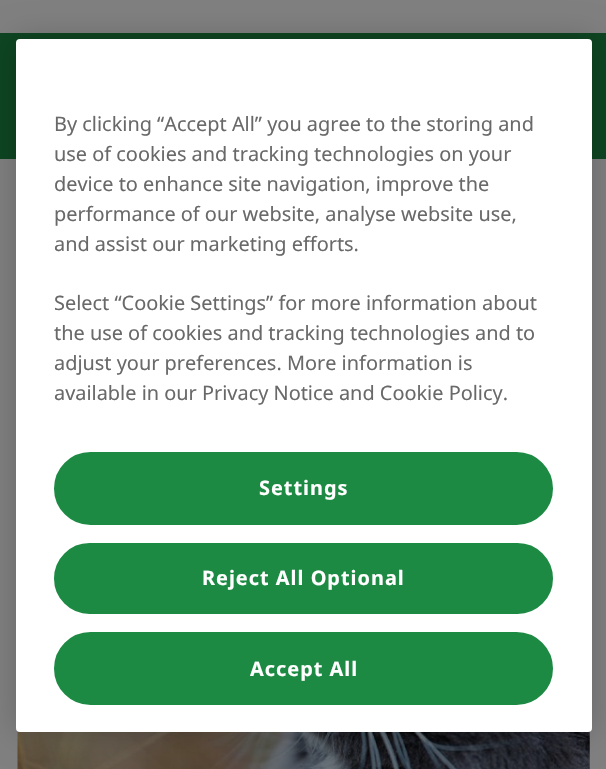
#include "include/core/SkBlurTypes.h"
#include "include/core/SkCanvas.h"
#include "include/core/SkData.h"
#include "include/core/SkFont.h"
#include "include/core/SkFontMgr.h"
#include "include/core/SkImage.h"
#include "include/core/SkMaskFilter.h"
#include "include/core/SkPaint.h"
#include "include/core/SkPathBuilder.h"
#include "include/core/SkTextBlob.h"
#include "include/effects/SkDashPathEffect.h"
#include "include/effects/SkGradientShader.h"
#include "include/utils/SkParsePath.h"

extern sk_sp<SkFontMgr> fontMgr;

void draw(SkCanvas* canvas) {
  SkPaint p;
  p.setAntiAlias(true);
  auto spacedText = [&](const char* s, float x, float y, const SkFont& font, const SkPaint& ink, float letter, float word) {
    std::vector<SkGlyphID> glyphs(font.countText(s, strlen(s), SkTextEncoding::kUTF8));
    std::vector<float> xs(glyphs.size());
    font.textToGlyphs(s, strlen(s), SkTextEncoding::kUTF8, glyphs);
    font.getXPos(glyphs, xs, x);
    float extra = 0;
    for (size_t i = 0; i < glyphs.size(); i++) {
      xs[i] += extra;
      extra += letter + word * (glyphs[i] == font.unicharToGlyph(' '));
    }
    canvas->drawTextBlob(SkTextBlob::MakeFromPosHGlyphs(glyphs, xs, y, font), 0, 0, ink);
  };
  canvas->clear(SkColorSetRGB(128, 128, 128));
  p.setColor(SkColorSetRGB(14, 69, 34));
  canvas->drawRect(SkRect::MakeLTRB(0, 33, 606, 159), p);
  canvas->drawImageRect(SkImages::DeferredFromEncodedData(SkData::MakeFromFileName("images/1.png")), SkRect::MakeLTRB(17, 730, 590, 769), SkSamplingOptions());
  p.setColor(SkColorSetARGB(51, 0, 0, 0));
  p.setMaskFilter(SkMaskFilter::MakeBlur(kNormal_SkBlurStyle, 16));
  canvas->drawRoundRect(SkRect::MakeLTRB(16, 39, 592, 732), 4, 4, p);
  p.setMaskFilter(nullptr);
  p.setColor(SK_ColorWHITE);
  canvas->drawRoundRect(SkRect::MakeLTRB(16, 39, 592, 732), 4, 4, p);
  p.setColor(SkColorSetRGB(28, 138, 67));
  canvas->drawRoundRect(SkRect::MakeLTRB(55, 453, 552, 524), 35.5f, 35.5f, p);
  p.setStyle(SkPaint::kStroke_Style);
  p.setStrokeWidth(2);
  canvas->drawRoundRect(SkRect::MakeLTRB(55, 453, 552, 524), 35.5f, 35.5f, p);
  p.setStyle(SkPaint::kFill_Style);
  canvas->drawRoundRect(SkRect::MakeLTRB(55, 544, 552, 613), 34.5f, 34.5f, p);
  p.setStyle(SkPaint::kStroke_Style);
  canvas->drawRoundRect(SkRect::MakeLTRB(55, 544, 552, 613), 34.5f, 34.5f, p);
  p.setStyle(SkPaint::kFill_Style);
  canvas->drawRoundRect(SkRect::MakeLTRB(55, 633, 552, 704), 35.5f, 35.5f, p);
  p.setStyle(SkPaint::kStroke_Style);
  canvas->drawRoundRect(SkRect::MakeLTRB(55, 633, 552, 704), 35.5f, 35.5f, p);
  SkFont font1(fontMgr->matchFamilyStyle("Noto Sans", SkFontStyle::Normal()), 19.9f);
  font1.setSubpixel(true);
  p.setStyle(SkPaint::kFill_Style);
  p.setColor(SkColorSetRGB(105, 105, 105));
  canvas->drawString("By clicking “Accept All” you agree to the storing and", 54, 131, font1, p);
  canvas->drawString("use of cookies and tracking technologies on your", 54, 161, font1, p);
  canvas->drawString("device to enhance site navigation, improve the", 54, 191, font1, p);
  canvas->drawString("performance of our website, analyse website use,", 54, 221, font1, p);
  canvas->drawString("and assist our marketing efforts.", 54, 251, font1, p);
  canvas->drawString("Select “Cookie Settings” for more information about", 54, 310, font1, p);
  canvas->drawString("the use of cookies and tracking technologies and to", 54, 340, font1, p);
  canvas->drawString("adjust your preferences. More information is", 54, 370, font1, p);
  canvas->drawString("available in our Privacy Notice and Cookie Policy.", 54, 400, font1, p);
  SkFont font2(fontMgr->matchFamilyStyle("Noto Sans", SkFontStyle::Bold()), 19.9f);
  font2.setSubpixel(true);
  p.setColor(SK_ColorWHITE);
  spacedText("Settings", 259, 495, font2, p, 1, 0);
  spacedText("Reject All Optional", 202, 585, font2, p, 1, 0);
  spacedText("Accept All", 250, 676, font2, p, 1, 0);
}
